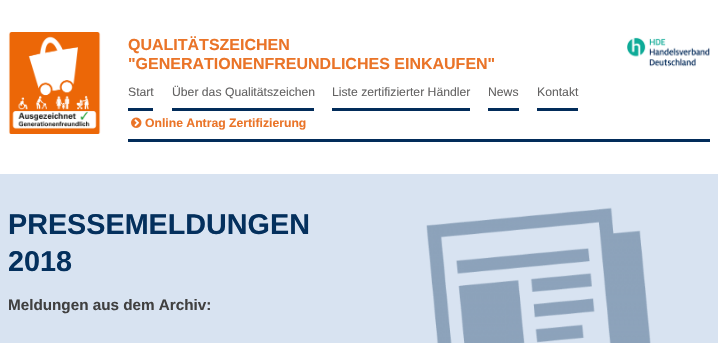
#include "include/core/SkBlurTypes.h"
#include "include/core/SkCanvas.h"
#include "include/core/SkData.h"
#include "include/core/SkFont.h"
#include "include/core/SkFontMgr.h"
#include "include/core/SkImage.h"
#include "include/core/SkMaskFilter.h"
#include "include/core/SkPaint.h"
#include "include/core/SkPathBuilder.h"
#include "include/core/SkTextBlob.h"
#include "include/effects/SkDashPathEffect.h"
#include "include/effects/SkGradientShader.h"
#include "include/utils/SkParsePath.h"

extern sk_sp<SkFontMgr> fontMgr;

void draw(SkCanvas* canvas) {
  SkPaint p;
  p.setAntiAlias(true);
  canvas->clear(SK_ColorWHITE);
  canvas->drawImageRect(SkImages::DeferredFromEncodedData(SkData::MakeFromFileName("images/1.png")), SkRect::MakeLTRB(8, 32, 101, 134), SkSamplingOptions());
  canvas->drawImageRect(SkImages::DeferredFromEncodedData(SkData::MakeFromFileName("images/2.png")), SkRect::MakeLTRB(627, 37, 710, 67), SkSamplingOptions());
  p.setColor(SkColorSetRGB(2, 44, 90));
  canvas->drawRect(SkRect::MakeLTRB(128, 139, 710, 142), p);
  canvas->drawRect(SkRect::MakeLTRB(128, 108, 153, 111), p);
  canvas->drawRect(SkRect::MakeLTRB(172, 108, 314, 111), p);
  canvas->drawRect(SkRect::MakeLTRB(332, 108, 470, 111), p);
  canvas->drawRect(SkRect::MakeLTRB(488, 108, 519, 111), p);
  canvas->drawRect(SkRect::MakeLTRB(537, 108, 578, 111), p);
  canvas->drawImageRect(SkImages::DeferredFromEncodedData(SkData::MakeFromFileName("images/3.png")), SkRect::MakeLTRB(131, 117, 142, 128), SkSamplingOptions());
  p.setColor(SkColorSetRGB(216, 227, 241));
  canvas->drawRect(SkRect::MakeLTRB(0, 174, 718, 343), p);
  canvas->drawImageRect(SkImages::DeferredFromEncodedData(SkData::MakeFromFileName("images/4.png")), SkRect::MakeLTRB(426, 207, 651, 343), SkSamplingOptions());
  SkFont font1(fontMgr->matchFamilyStyle("Liberation Sans", SkFontStyle::Bold()), 16);
  font1.setSubpixel(true);
  p.setColor(SkColorSetRGB(234, 116, 40));
  canvas->drawString("QUALITÄTSZEICHEN", 128, 50, font1, p);
  canvas->drawString("\"GENERATIONENFREUNDLICHES EINKAUFEN\"", 128, 69, font1, p);
  SkFont font2(fontMgr->matchFamilyStyle("Liberation Sans", SkFontStyle::Normal()), 12.2f);
  font2.setSubpixel(true);
  p.setColor(SkColorSetRGB(100, 99, 99));
  canvas->drawString("Start", 128, 96, font2, p);
  canvas->drawString("Über das Qualitätszeichen", 172, 96, font2, p);
  canvas->drawString("Liste zertifizierter Händler", 332, 96, font2, p);
  canvas->drawString("News", 488, 96, font2, p);
  canvas->drawString("Kontakt", 537, 96, font2, p);
  SkFont font3(fontMgr->matchFamilyStyle("Liberation Sans", SkFontStyle::Bold()), 12.2f);
  font3.setSubpixel(true);
  p.setColor(SkColorSetRGB(234, 116, 40));
  canvas->drawString("Online Antrag Zertifizierung", 145, 127, font3, p);
  SkFont font4(fontMgr->matchFamilyStyle("Liberation Sans", SkFontStyle::Bold()), 28.75f);
  font4.setSubpixel(true);
  p.setColor(SkColorSetRGB(4, 48, 93));
  canvas->drawString("PRESSEMELDUNGEN", 8, 234, font4, p);
  canvas->drawString("2018", 8, 271, font4, p);
  SkFont font5(fontMgr->matchFamilyStyle("Liberation Sans", SkFontStyle::Bold()), 15.25f);
  font5.setSubpixel(true);
  p.setColor(SkColorSetRGB(64, 64, 64));
  canvas->drawString("Meldungen aus dem Archiv:", 8, 310, font5, p);
}
